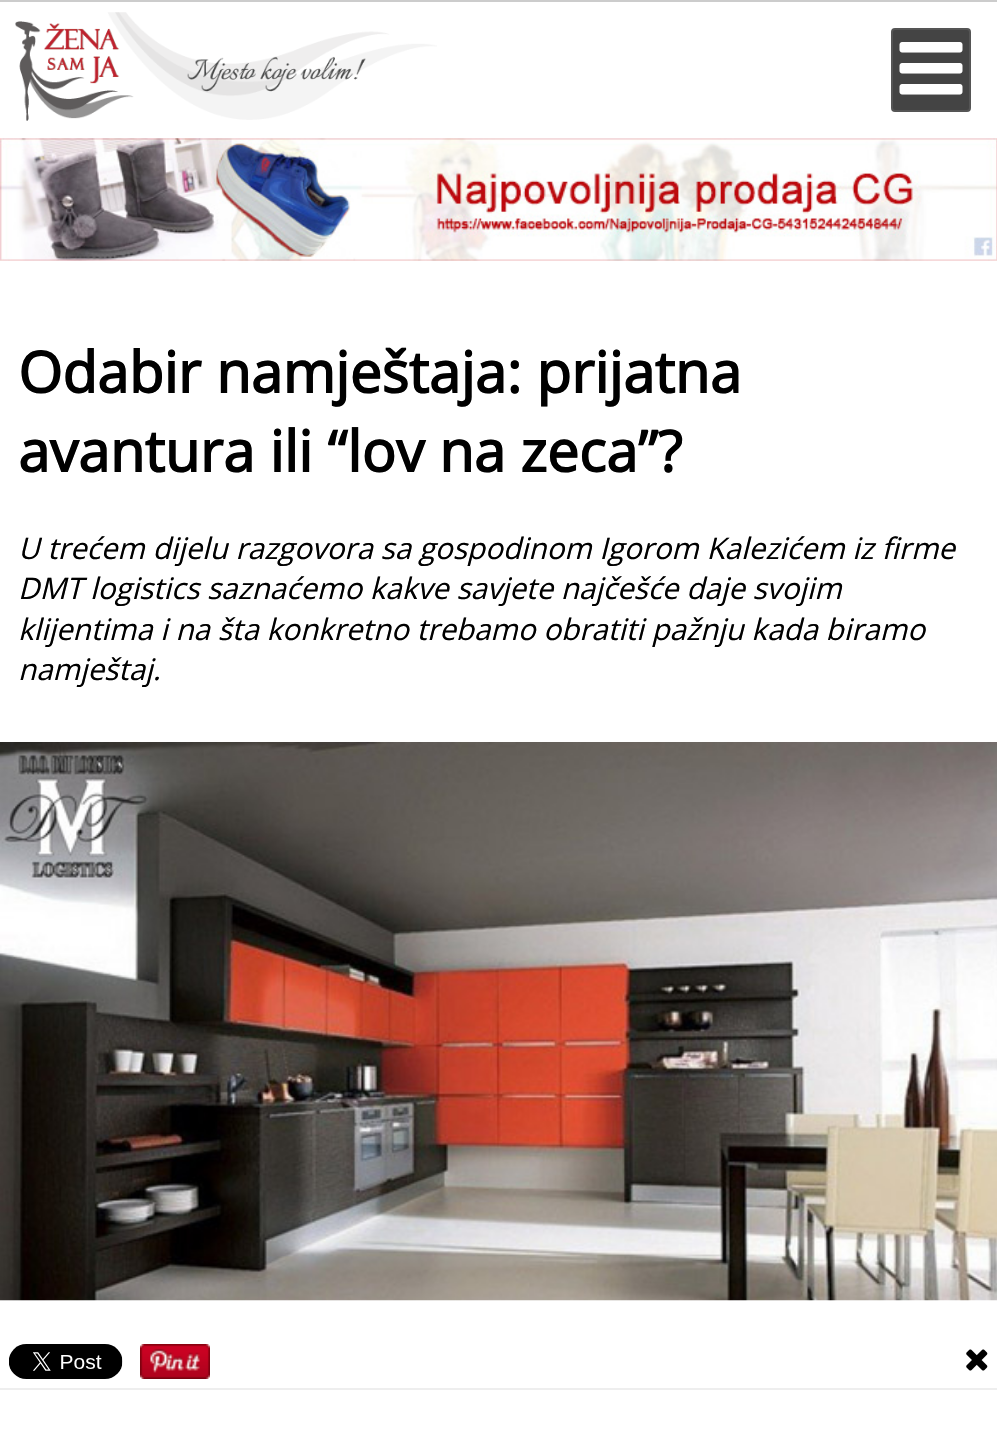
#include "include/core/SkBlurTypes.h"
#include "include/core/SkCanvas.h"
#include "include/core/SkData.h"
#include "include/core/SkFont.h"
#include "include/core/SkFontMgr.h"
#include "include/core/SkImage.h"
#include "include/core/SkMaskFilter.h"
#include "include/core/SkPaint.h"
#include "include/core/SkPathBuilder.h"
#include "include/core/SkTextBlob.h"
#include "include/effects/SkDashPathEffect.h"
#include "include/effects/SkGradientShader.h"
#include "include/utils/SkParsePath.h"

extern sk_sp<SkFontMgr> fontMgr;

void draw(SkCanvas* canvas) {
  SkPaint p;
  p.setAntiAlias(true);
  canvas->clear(SK_ColorWHITE);
  p.setColor(SkColorSetRGB(204, 204, 204));
  canvas->drawRect(SkRect::MakeLTRB(0, 0, 997, 2), p);
  canvas->drawImageRect(SkImages::DeferredFromEncodedData(SkData::MakeFromFileName("images/1.png")), SkRect::MakeLTRB(15, 12, 437, 121), SkSamplingOptions());
  p.setColor(SkColorSetRGB(68, 68, 68));
  canvas->drawRoundRect(SkRect::MakeLTRB(892, 29, 970, 111), 3, 3, p);
  p.setStyle(SkPaint::kStroke_Style);
  p.setStrokeWidth(2);
  p.setColor(SkColorSetRGB(85, 85, 85));
  canvas->drawRoundRect(SkRect::MakeLTRB(892, 29, 970, 111), 3, 3, p);
  canvas->drawImageRect(SkImages::DeferredFromEncodedData(SkData::MakeFromFileName("images/2.png")), SkRect::MakeLTRB(899, 42, 963, 95), SkSamplingOptions());
  canvas->drawImageRect(SkImages::DeferredFromEncodedData(SkData::MakeFromFileName("images/3.png")), SkRect::MakeLTRB(0, 138, 997, 261), SkSamplingOptions());
  canvas->drawImageRect(SkImages::DeferredFromEncodedData(SkData::MakeFromFileName("images/4.png")), SkRect::MakeLTRB(0, 742, 997, 1301), SkSamplingOptions());
  p.setStyle(SkPaint::kFill_Style);
  p.setColor(SkColorSetRGB(238, 238, 238));
  canvas->drawRect(SkRect::MakeLTRB(0, 1388, 997, 1390), p);
  canvas->drawImageRect(SkImages::DeferredFromEncodedData(SkData::MakeFromFileName("images/5.png")), SkRect::MakeLTRB(9, 1344, 123, 1379), SkSamplingOptions());
  canvas->drawImageRect(SkImages::DeferredFromEncodedData(SkData::MakeFromFileName("images/6.png")), SkRect::MakeLTRB(140, 1344, 210, 1379), SkSamplingOptions());
  canvas->drawImageRect(SkImages::DeferredFromEncodedData(SkData::MakeFromFileName("images/7.png")), SkRect::MakeLTRB(966, 1349, 988, 1371), SkSamplingOptions());
  SkFont font1(fontMgr->matchFamilyStyle("Open Sans", SkFontStyle::Bold()), 56.9f);
  font1.setSubpixel(true);
  p.setColor(SK_ColorBLACK);
  canvas->drawString("Odabir namještaja: prijatna", 18, 393, font1, p);
  canvas->drawString("avantura ili “lov na zeca”?", 18, 472, font1, p);
  SkFont font2(fontMgr->matchFamilyStyle("Open Sans", SkFontStyle::Italic()), 29.6f);
  font2.setSubpixel(true);
  canvas->drawString("U trećem dijelu razgovora sa gospodinom Igorom Kalezićem iz firme", 18, 559, font2, p);
  canvas->drawString("DMT logistics saznaćemo kakve savjete najčešće daje svojim", 18, 599, font2, p);
  canvas->drawString("klijentima i na šta konkretno trebamo obratiti pažnju kada biramo", 18, 640, font2, p);
  canvas->drawString("namještaj.", 18, 680, font2, p);
}
